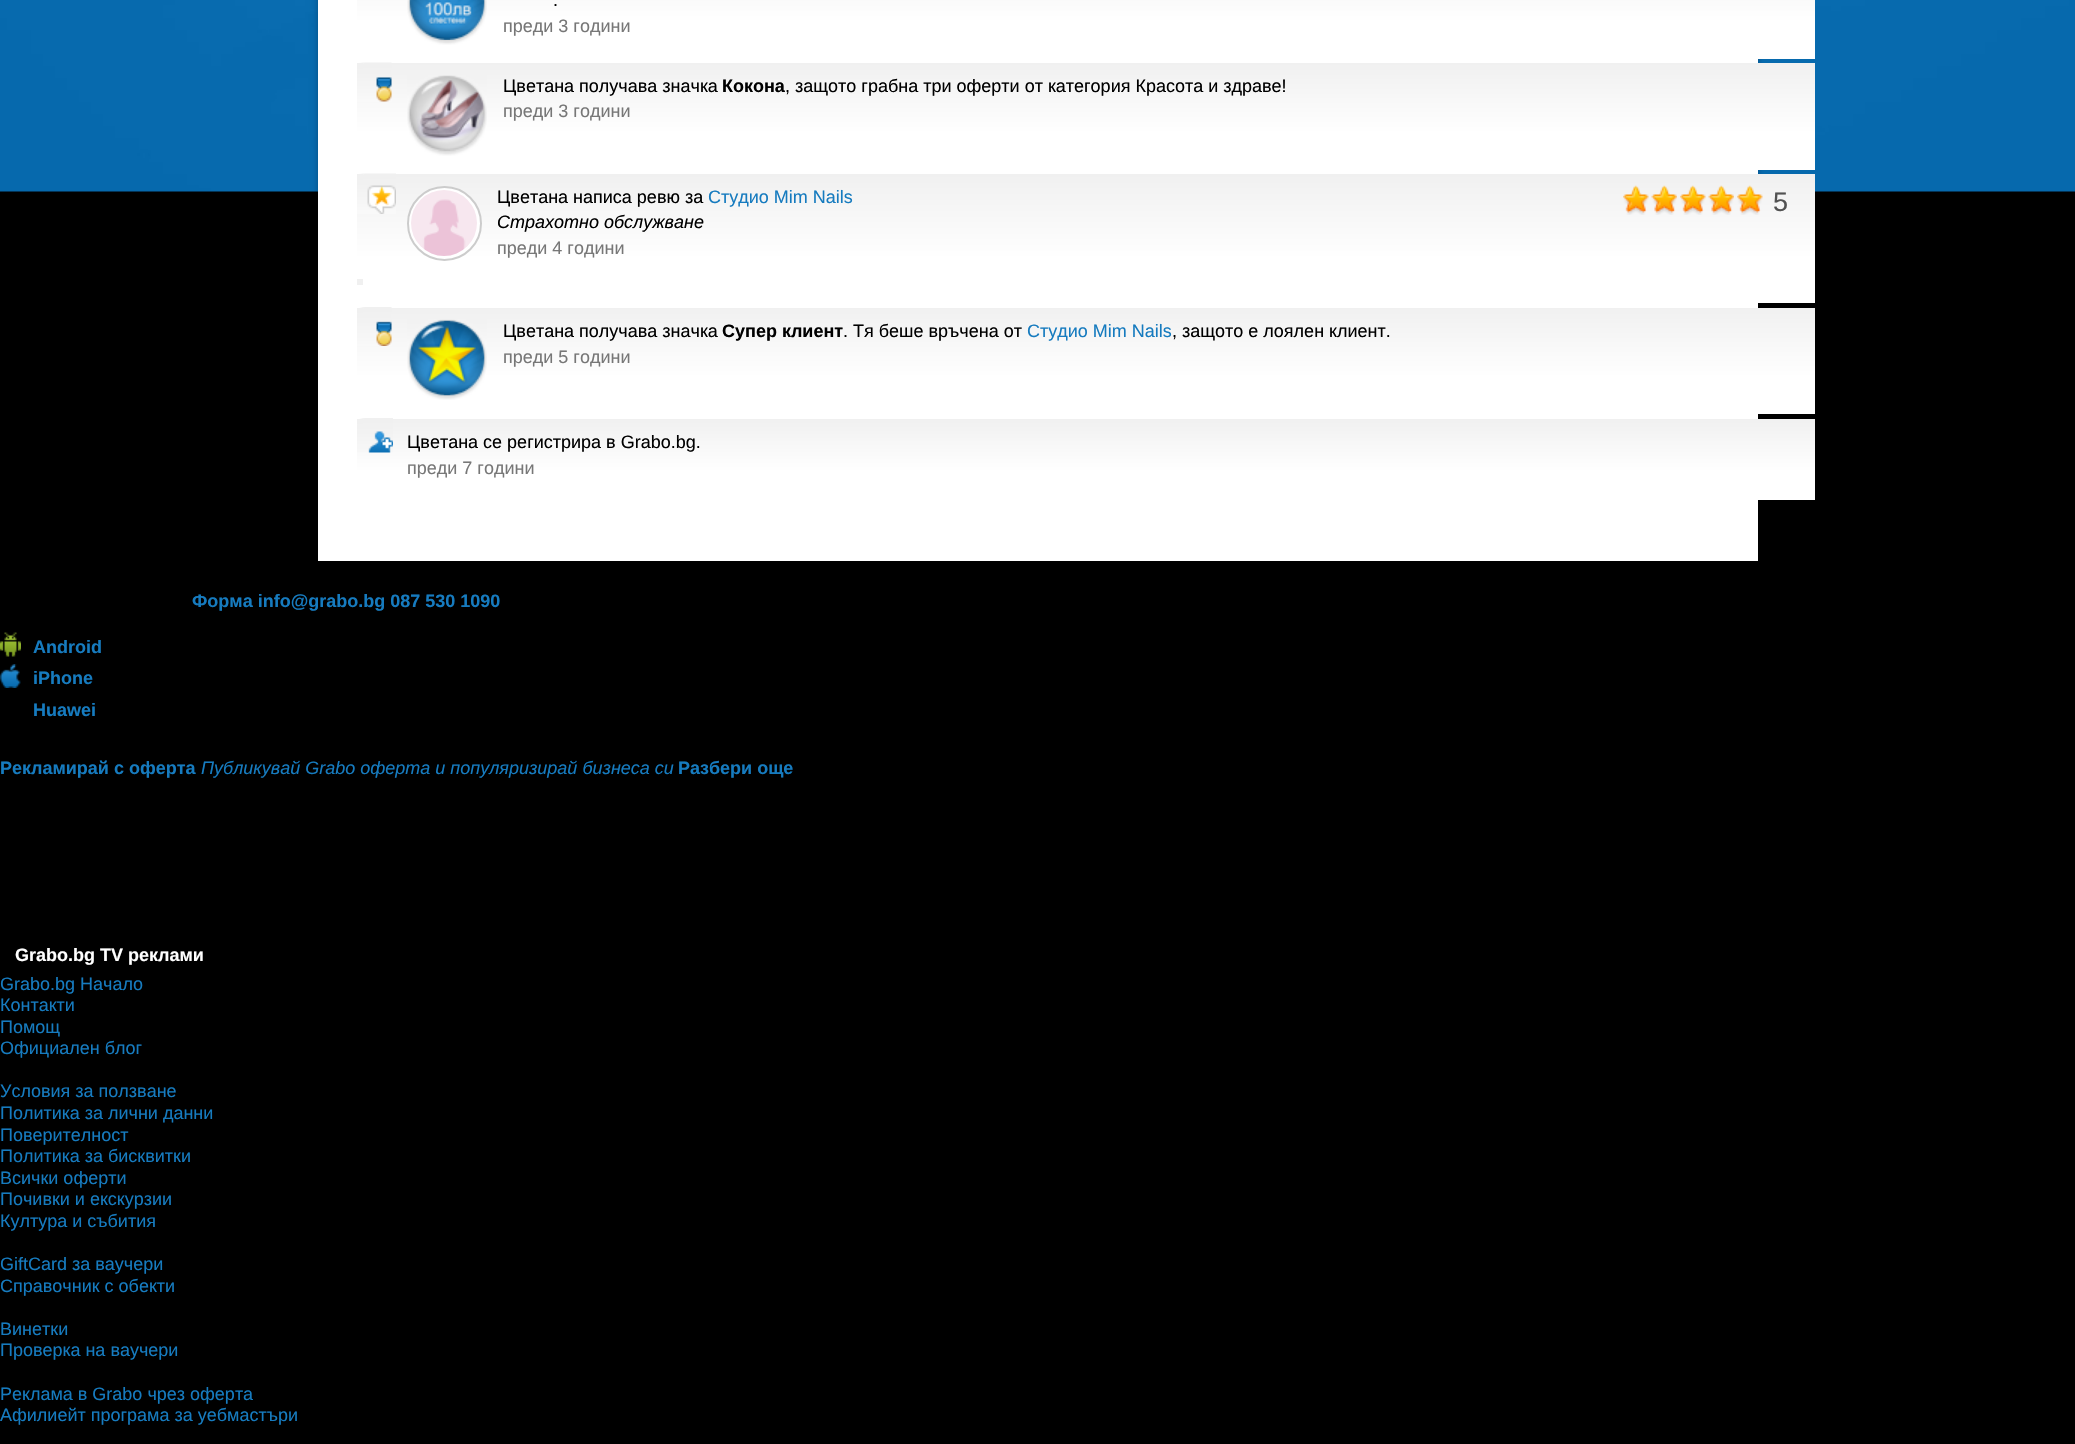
#include "include/core/SkBlurTypes.h"
#include "include/core/SkCanvas.h"
#include "include/core/SkData.h"
#include "include/core/SkFont.h"
#include "include/core/SkFontMgr.h"
#include "include/core/SkImage.h"
#include "include/core/SkMaskFilter.h"
#include "include/core/SkPaint.h"
#include "include/core/SkPathBuilder.h"
#include "include/core/SkTextBlob.h"
#include "include/effects/SkDashPathEffect.h"
#include "include/effects/SkGradientShader.h"
#include "include/utils/SkParsePath.h"

extern sk_sp<SkFontMgr> fontMgr;

void draw(SkCanvas* canvas) {
  SkPaint p;
  p.setAntiAlias(true);
  canvas->clear(SK_ColorBLACK);
  canvas->drawImageRect(SkImages::DeferredFromEncodedData(SkData::MakeFromFileName("images/1.png")), SkRect::MakeLTRB(0, 0, 2075, 192), SkSamplingOptions());
  p.setColor(SkColorSetARGB(64, 0, 0, 0));
  p.setMaskFilter(SkMaskFilter::MakeBlur(kNormal_SkBlurStyle, 3));
  canvas->drawRect(SkRect::MakeLTRB(318, -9, 1758, 563), p);
  p.setMaskFilter(nullptr);
  p.setColor(SK_ColorWHITE);
  canvas->drawRect(SkRect::MakeLTRB(318, 0, 1758, 561), p);
  {
    const SkColor colors[] = {SkColorSetRGB(240, 240, 240), SK_ColorWHITE};
    const float stops[] = {0, 0.66f};
    const SkPoint ends[] = {{1086, -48}, {1086, 59}};
    p.setShader(SkGradientShader::MakeLinear(ends, colors, stops, 2, SkTileMode::kClamp));
    p.setAlpha(255);
  }
  canvas->drawRect(SkRect::MakeLTRB(357, 0, 1815, 59), p);
  canvas->drawImageRect(SkImages::DeferredFromEncodedData(SkData::MakeFromFileName("images/3.png")), SkRect::MakeLTRB(409, 0, 485, 40), SkSamplingOptions());
  canvas->drawImageRect(SkImages::DeferredFromEncodedData(SkData::MakeFromFileName("images/2.png")), SkRect::MakeLTRB(407, 0, 487, 45), SkSamplingOptions());
  {
    const SkColor colors[] = {SkColorSetRGB(240, 240, 240), SK_ColorWHITE};
    const float stops[] = {0, 0.66f};
    const SkPoint ends[] = {{1086, 63}, {1086, 170}};
    p.setShader(SkGradientShader::MakeLinear(ends, colors, stops, 2, SkTileMode::kClamp));
    p.setAlpha(255);
  }
  canvas->drawRect(SkRect::MakeLTRB(357, 63, 1815, 170), p);
  canvas->drawImageRect(SkImages::DeferredFromEncodedData(SkData::MakeFromFileName("images/4.png")), SkRect::MakeLTRB(357, 62, 392, 102), SkSamplingOptions());
  p.setShader(nullptr);
  p.setColor(SkColorSetRGB(240, 240, 240));
  canvas->drawRect(SkRect::MakeLTRB(357, 63, 363, 69), p);
  canvas->drawImageRect(SkImages::DeferredFromEncodedData(SkData::MakeFromFileName("images/6.png")), SkRect::MakeLTRB(409, 76, 485, 141), SkSamplingOptions());
  canvas->drawImageRect(SkImages::DeferredFromEncodedData(SkData::MakeFromFileName("images/5.png")), SkRect::MakeLTRB(407, 75, 487, 156), SkSamplingOptions());
  {
    const SkColor colors[] = {SkColorSetRGB(240, 240, 240), SK_ColorWHITE};
    const float stops[] = {0, 0.66f};
    const SkPoint ends[] = {{1086, 174}, {1086, 303}};
    p.setShader(SkGradientShader::MakeLinear(ends, colors, stops, 2, SkTileMode::kClamp));
    p.setAlpha(255);
  }
  canvas->drawRect(SkRect::MakeLTRB(357, 174, 1815, 303), p);
  canvas->drawImageRect(SkImages::DeferredFromEncodedData(SkData::MakeFromFileName("images/7.png")), SkRect::MakeLTRB(357, 173, 396, 214), SkSamplingOptions());
  p.setShader(nullptr);
  p.setColor(SkColorSetRGB(240, 240, 240));
  canvas->drawRect(SkRect::MakeLTRB(357, 174, 363, 180), p);
  p.setColor(SK_ColorWHITE);
  canvas->drawCircle(444.5f, 223.5f, 36.5f, p);
  p.setStyle(SkPaint::kStroke_Style);
  p.setStrokeWidth(2);
  p.setColor(SkColorSetRGB(204, 204, 204));
  canvas->drawCircle(444.5f, 223.5f, 36.5f, p);
  canvas->drawImageRect(SkImages::DeferredFromEncodedData(SkData::MakeFromFileName("images/8.png")), SkRect::MakeLTRB(411, 190, 477, 256), SkSamplingOptions());
  canvas->drawImageRect(SkImages::DeferredFromEncodedData(SkData::MakeFromFileName("images/9.png")), SkRect::MakeLTRB(1623, 185, 1649, 215), SkSamplingOptions());
  canvas->drawImageRect(SkImages::DeferredFromEncodedData(SkData::MakeFromFileName("images/10.png")), SkRect::MakeLTRB(1651, 185, 1677, 215), SkSamplingOptions());
  canvas->drawImageRect(SkImages::DeferredFromEncodedData(SkData::MakeFromFileName("images/9.png")), SkRect::MakeLTRB(1680, 185, 1706, 215), SkSamplingOptions());
  canvas->drawImageRect(SkImages::DeferredFromEncodedData(SkData::MakeFromFileName("images/10.png")), SkRect::MakeLTRB(1708, 185, 1734, 215), SkSamplingOptions());
  canvas->drawImageRect(SkImages::DeferredFromEncodedData(SkData::MakeFromFileName("images/9.png")), SkRect::MakeLTRB(1737, 185, 1763, 215), SkSamplingOptions());
  p.setStyle(SkPaint::kFill_Style);
  p.setColor(SkColorSetRGB(240, 240, 240));
  canvas->drawRect(SkRect::MakeLTRB(357, 279, 363, 285), p);
  {
    const SkColor colors[] = {SkColorSetRGB(240, 240, 240), SK_ColorWHITE};
    const float stops[] = {0, 0.66f};
    const SkPoint ends[] = {{1086, 307}, {1086, 414}};
    p.setShader(SkGradientShader::MakeLinear(ends, colors, stops, 2, SkTileMode::kClamp));
    p.setAlpha(255);
  }
  canvas->drawRect(SkRect::MakeLTRB(357, 308, 1815, 414), p);
  canvas->drawImageRect(SkImages::DeferredFromEncodedData(SkData::MakeFromFileName("images/11.png")), SkRect::MakeLTRB(357, 307, 392, 346), SkSamplingOptions());
  p.setShader(nullptr);
  p.setColor(SkColorSetRGB(240, 240, 240));
  canvas->drawRect(SkRect::MakeLTRB(357, 308, 363, 313), p);
  canvas->drawImageRect(SkImages::DeferredFromEncodedData(SkData::MakeFromFileName("images/13.png")), SkRect::MakeLTRB(409, 320, 485, 396), SkSamplingOptions());
  canvas->drawImageRect(SkImages::DeferredFromEncodedData(SkData::MakeFromFileName("images/12.png")), SkRect::MakeLTRB(407, 319, 487, 400), SkSamplingOptions());
  {
    const SkColor colors[] = {SkColorSetRGB(240, 240, 240), SK_ColorWHITE};
    const float stops[] = {0, 0.66f};
    const SkPoint ends[] = {{1086, 418}, {1086, 500}};
    p.setShader(SkGradientShader::MakeLinear(ends, colors, stops, 2, SkTileMode::kClamp));
    p.setAlpha(255);
  }
  canvas->drawRect(SkRect::MakeLTRB(357, 419, 1815, 500), p);
  canvas->drawImageRect(SkImages::DeferredFromEncodedData(SkData::MakeFromFileName("images/14.png")), SkRect::MakeLTRB(357, 418, 393, 453), SkSamplingOptions());
  p.setShader(nullptr);
  p.setColor(SkColorSetRGB(240, 240, 240));
  canvas->drawRect(SkRect::MakeLTRB(357, 419, 363, 424), p);
  canvas->drawImageRect(SkImages::DeferredFromEncodedData(SkData::MakeFromFileName("images/15.png")), SkRect::MakeLTRB(0, 632, 21, 657), SkSamplingOptions());
  canvas->drawImageRect(SkImages::DeferredFromEncodedData(SkData::MakeFromFileName("images/16.png")), SkRect::MakeLTRB(0, 664, 21, 688), SkSamplingOptions());
  SkFont font1(fontMgr->matchFamilyStyle("Liberation Sans", SkFontStyle::Normal()), 18);
  font1.setSubpixel(true);
  p.setColor(SK_ColorBLACK);
  canvas->drawString(".", 553, 6, font1, p);
  p.setColor(SkColorSetRGB(119, 119, 119));
  canvas->drawString("преди 3 години", 503, 32, font1, p);
  p.setColor(SK_ColorBLACK);
  canvas->drawString("Цветана получава значка", 503, 92, font1, p);
  SkFont font2(fontMgr->matchFamilyStyle("Liberation Sans", SkFontStyle::Bold()), 18);
  font2.setSubpixel(true);
  canvas->drawString("Кокона", 722, 92, font2, p);
  canvas->drawString(", защото грабна три оферти от категория Красота и здраве!", 785, 92, font1, p);
  p.setColor(SkColorSetRGB(119, 119, 119));
  canvas->drawString("преди 3 години", 503, 117, font1, p);
  p.setColor(SK_ColorBLACK);
  canvas->drawString("Цветана написа ревю за", 497, 203, font1, p);
  p.setColor(SkColorSetRGB(22, 123, 191));
  canvas->drawString("Студио Mim Nails", 708, 203, font1, p);
  SkFont font3(fontMgr->matchFamilyStyle("Liberation Sans", SkFontStyle::Normal()), 27);
  font3.setSubpixel(true);
  p.setColor(SkColorSetRGB(82, 82, 82));
  canvas->drawString("5", 1773, 211, font3, p);
  SkFont font4(fontMgr->matchFamilyStyle("Liberation Sans", SkFontStyle::Italic()), 18);
  font4.setSubpixel(true);
  p.setColor(SK_ColorBLACK);
  canvas->drawString("Страхотно обслужване", 497, 228, font4, p);
  p.setColor(SkColorSetRGB(119, 119, 119));
  canvas->drawString("преди 4 години", 497, 254, font1, p);
  p.setColor(SK_ColorBLACK);
  canvas->drawString("Цветана получава значка", 503, 337, font1, p);
  canvas->drawString("Супер клиент", 722, 337, font2, p);
  canvas->drawString(". Тя беше връчена от", 843, 337, font1, p);
  p.setColor(SkColorSetRGB(22, 123, 191));
  canvas->drawString("Студио Mim Nails", 1027, 337, font1, p);
  p.setColor(SK_ColorBLACK);
  canvas->drawString(", защото е лоялен клиент.", 1172, 337, font1, p);
  p.setColor(SkColorSetRGB(119, 119, 119));
  canvas->drawString("преди 5 години", 503, 363, font1, p);
  p.setColor(SK_ColorBLACK);
  canvas->drawString("Цветана се регистрира в Grabo.bg.", 407, 448, font1, p);
  p.setColor(SkColorSetRGB(119, 119, 119));
  canvas->drawString("преди 7 години", 407, 474, font1, p);
  p.setColor(SkColorSetRGB(22, 123, 191));
  canvas->drawString("Форма info@grabo.bg 087 530 1090", 192, 607, font2, p);
  canvas->drawString("Android", 33, 653, font2, p);
  canvas->drawString("iPhone", 33, 684, font2, p);
  canvas->drawString("Huawei", 33, 716, font2, p);
  canvas->drawString("Рекламирай с оферта", 0, 774, font2, p);
  canvas->drawString("Публикувай Grabo оферта и популяризирай бизнеса си", 201, 774, font4, p);
  canvas->drawString("Разбери още", 678, 774, font2, p);
  p.setColor(SK_ColorWHITE);
  canvas->drawString("Grabo.bg TV реклами", 15, 961, font2, p);
  p.setColor(SkColorSetRGB(22, 123, 191));
  canvas->drawString("Grabo.bg Начало", 0, 990, font1, p);
  canvas->drawString("Контакти", 0, 1011, font1, p);
  canvas->drawString("Помощ", 0, 1033, font1, p);
  canvas->drawString("Официален блог", 0, 1054, font1, p);
  canvas->drawString("Условия за ползване", 0, 1097, font1, p);
  canvas->drawString("Политика за лични данни", 0, 1119, font1, p);
  canvas->drawString("Поверителност", 0, 1141, font1, p);
  canvas->drawString("Политика за бисквитки", 0, 1162, font1, p);
  canvas->drawString("Всички оферти", 0, 1184, font1, p);
  canvas->drawString("Почивки и екскурзии", 0, 1205, font1, p);
  canvas->drawString("Култура и събития", 0, 1227, font1, p);
  canvas->drawString("GiftCard за ваучери", 0, 1270, font1, p);
  canvas->drawString("Справочник с обекти", 0, 1292, font1, p);
  canvas->drawString("Винетки", 0, 1335, font1, p);
  canvas->drawString("Проверка на ваучери", 0, 1356, font1, p);
  canvas->drawString("Реклама в Grabo чрез оферта", 0, 1400, font1, p);
  canvas->drawString("Афилиейт програма за уебмастъри", 0, 1421, font1, p);
}
